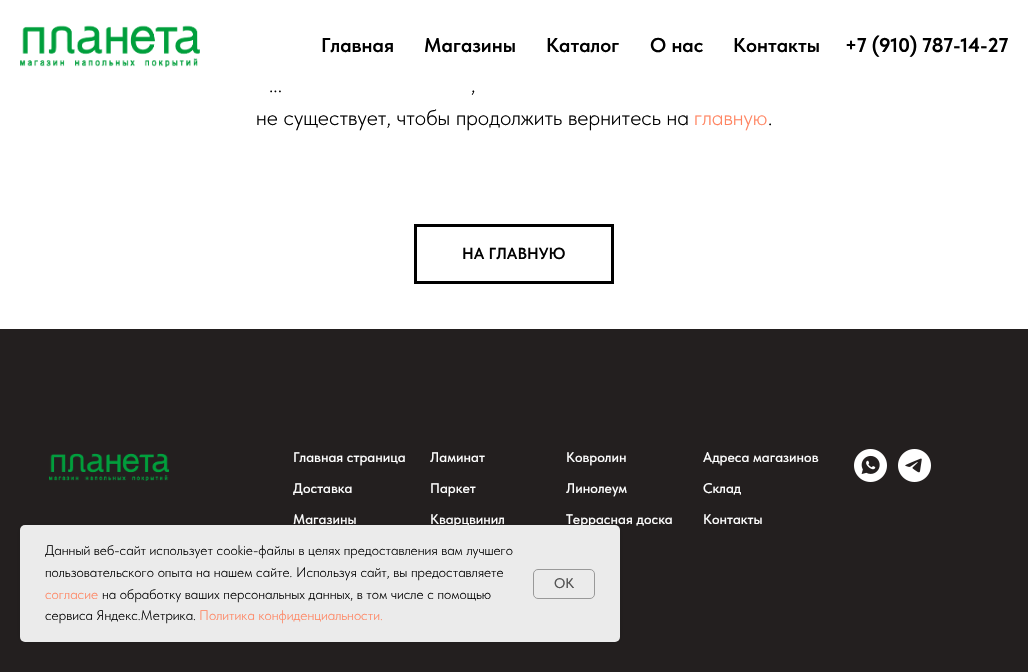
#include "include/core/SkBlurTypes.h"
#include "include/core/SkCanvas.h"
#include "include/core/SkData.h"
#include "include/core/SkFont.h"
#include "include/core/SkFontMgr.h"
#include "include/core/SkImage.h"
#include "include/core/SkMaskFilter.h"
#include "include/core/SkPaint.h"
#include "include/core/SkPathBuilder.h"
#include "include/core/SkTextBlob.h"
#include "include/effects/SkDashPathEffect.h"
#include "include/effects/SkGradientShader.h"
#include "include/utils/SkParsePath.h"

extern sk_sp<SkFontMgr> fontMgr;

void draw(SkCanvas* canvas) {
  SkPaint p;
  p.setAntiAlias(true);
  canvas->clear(SK_ColorWHITE);
  canvas->drawImageRect(SkImages::DeferredFromEncodedData(SkData::MakeFromFileName("images/1.png")), SkRect::MakeLTRB(20, 25, 200, 68), SkSamplingOptions());
  p.setStyle(SkPaint::kStroke_Style);
  p.setStrokeWidth(3);
  p.setColor(SK_ColorBLACK);
  canvas->drawRect(SkRect::MakeLTRB(415.5f, 225.5f, 612.5f, 282.5f), p);
  p.setStyle(SkPaint::kFill_Style);
  p.setColor(SkColorSetRGB(35, 31, 31));
  canvas->drawRect(SkRect::MakeLTRB(0, 329, 1028, 672), p);
  canvas->drawImageRect(SkImages::DeferredFromEncodedData(SkData::MakeFromFileName("images/2.png")), SkRect::MakeLTRB(49, 453, 169, 481), SkSamplingOptions());
  canvas->drawImageRect(SkImages::DeferredFromEncodedData(SkData::MakeFromFileName("images/3.png")), SkRect::MakeLTRB(854, 449, 887, 482), SkSamplingOptions());
  canvas->drawImageRect(SkImages::DeferredFromEncodedData(SkData::MakeFromFileName("images/4.png")), SkRect::MakeLTRB(898, 449, 931, 482), SkSamplingOptions());
  p.setColor(SkColorSetARGB(26, 0, 0, 0));
  p.setMaskFilter(SkMaskFilter::MakeBlur(kNormal_SkBlurStyle, 2.5f));
  canvas->drawRoundRect(SkRect::MakeLTRB(20, 525, 620, 642), 5, 5, p);
  p.setMaskFilter(nullptr);
  SkFont font1(fontMgr->matchFamilyStyle("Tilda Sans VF", SkFontStyle(600, SkFontStyle::kNormal_Width, SkFontStyle::kUpright_Slant)), 20);
  font1.setSubpixel(true);
  p.setColor(SK_ColorBLACK);
  canvas->drawString("Главная", 321, 52, font1, p);
  canvas->drawString("Магазины", 424, 52, font1, p);
  canvas->drawString("Каталог", 546, 52, font1, p);
  canvas->drawString("О нас", 650, 52, font1, p);
  canvas->drawString("Контакты", 733, 52, font1, p);
  SkFont font2(fontMgr->matchFamilyStyle("Tilda Sans VF", SkFontStyle::Bold()), 20);
  font2.setSubpixel(true);
  canvas->drawString("+7 (910) 787-14-27", 845, 52, font2, p);
  SkFont font3(fontMgr->matchFamilyStyle("Tilda Sans VF", SkFontStyle(300, SkFontStyle::kNormal_Width, SkFontStyle::kUpright_Slant)), 22);
  font3.setSubpixel(true);
  canvas->drawString("...", 269, 92, font3, p);
  canvas->drawString(",", 471, 92, font3, p);
  canvas->drawString("не существует, чтобы продолжить вернитесь на", 256, 125, font3, p);
  p.setColor(SkColorSetRGB(255, 133, 98));
  canvas->drawString("главную", 694, 125, font3, p);
  p.setColor(SK_ColorBLACK);
  canvas->drawString(".", 768, 125, font3, p);
  SkFont font4(fontMgr->matchFamilyStyle("Tilda Sans VF", SkFontStyle(600, SkFontStyle::kNormal_Width, SkFontStyle::kUpright_Slant)), 16);
  font4.setSubpixel(true);
  canvas->drawString("НА ГЛАВНУЮ", 462, 259, font4, p);
  SkFont font5(fontMgr->matchFamilyStyle("Tilda Sans VF", SkFontStyle(500, SkFontStyle::kNormal_Width, SkFontStyle::kUpright_Slant)), 14);
  font5.setSubpixel(true);
  p.setColor(SK_ColorWHITE);
  canvas->drawString("Главная страница", 293, 462, font5, p);
  canvas->drawString("Доставка", 293, 493, font5, p);
  canvas->drawString("Магазины", 293, 524, font5, p);
  canvas->drawString("Ламинат", 430, 462, font5, p);
  canvas->drawString("Паркет", 430, 493, font5, p);
  canvas->drawString("Кварцвинил", 430, 524, font5, p);
  canvas->drawString("Ковролин", 566, 462, font5, p);
  canvas->drawString("Линолеум", 566, 493, font5, p);
  canvas->drawString("Террасная доска", 566, 524, font5, p);
  canvas->drawString("Адреса магазинов", 703, 462, font5, p);
  canvas->drawString("Склад", 703, 493, font5, p);
  canvas->drawString("Контакты", 703, 524, font5, p);
  p.setColor(SkColorSetRGB(235, 235, 235));
  canvas->drawRoundRect(SkRect::MakeLTRB(20, 525, 620, 642), 5, 5, p);
  SkFont font6(fontMgr->matchFamilyStyle("Tilda Sans VF", SkFontStyle(300, SkFontStyle::kNormal_Width, SkFontStyle::kUpright_Slant)), 14);
  font6.setSubpixel(true);
  p.setColor(SK_ColorBLACK);
  canvas->drawString("Данный веб-сайт использует cookie-файлы в целях предоставления вам лучшего", 45, 555, font6, p);
  canvas->drawString("пользовательского опыта на нашем сайте. Используя сайт, вы предоставляете", 45, 577, font6, p);
  p.setColor(SkColorSetRGB(255, 133, 98));
  canvas->drawString("согласие", 45, 599, font6, p);
  p.setColor(SK_ColorBLACK);
  canvas->drawString("на обработку ваших персональных данных, в том числе с помощью", 102, 599, font6, p);
  canvas->drawString("сервиса Яндекс.Метрика.", 45, 620, font6, p);
  p.setColor(SkColorSetRGB(255, 133, 98));
  canvas->drawString("Политика конфиденциальности.", 199, 620, font6, p);
  p.setStyle(SkPaint::kStroke_Style);
  p.setStrokeWidth(1);
  p.setColor(SkColorSetRGB(153, 153, 153));
  canvas->drawRoundRect(SkRect::MakeLTRB(533.5f, 569.5f, 594.5f, 598.5f), 4.5f, 4.5f, p);
  p.setStyle(SkPaint::kFill_Style);
  p.setColor(SkColorSetRGB(85, 85, 85));
  canvas->drawString("OK", 554, 588, font5, p);
}
